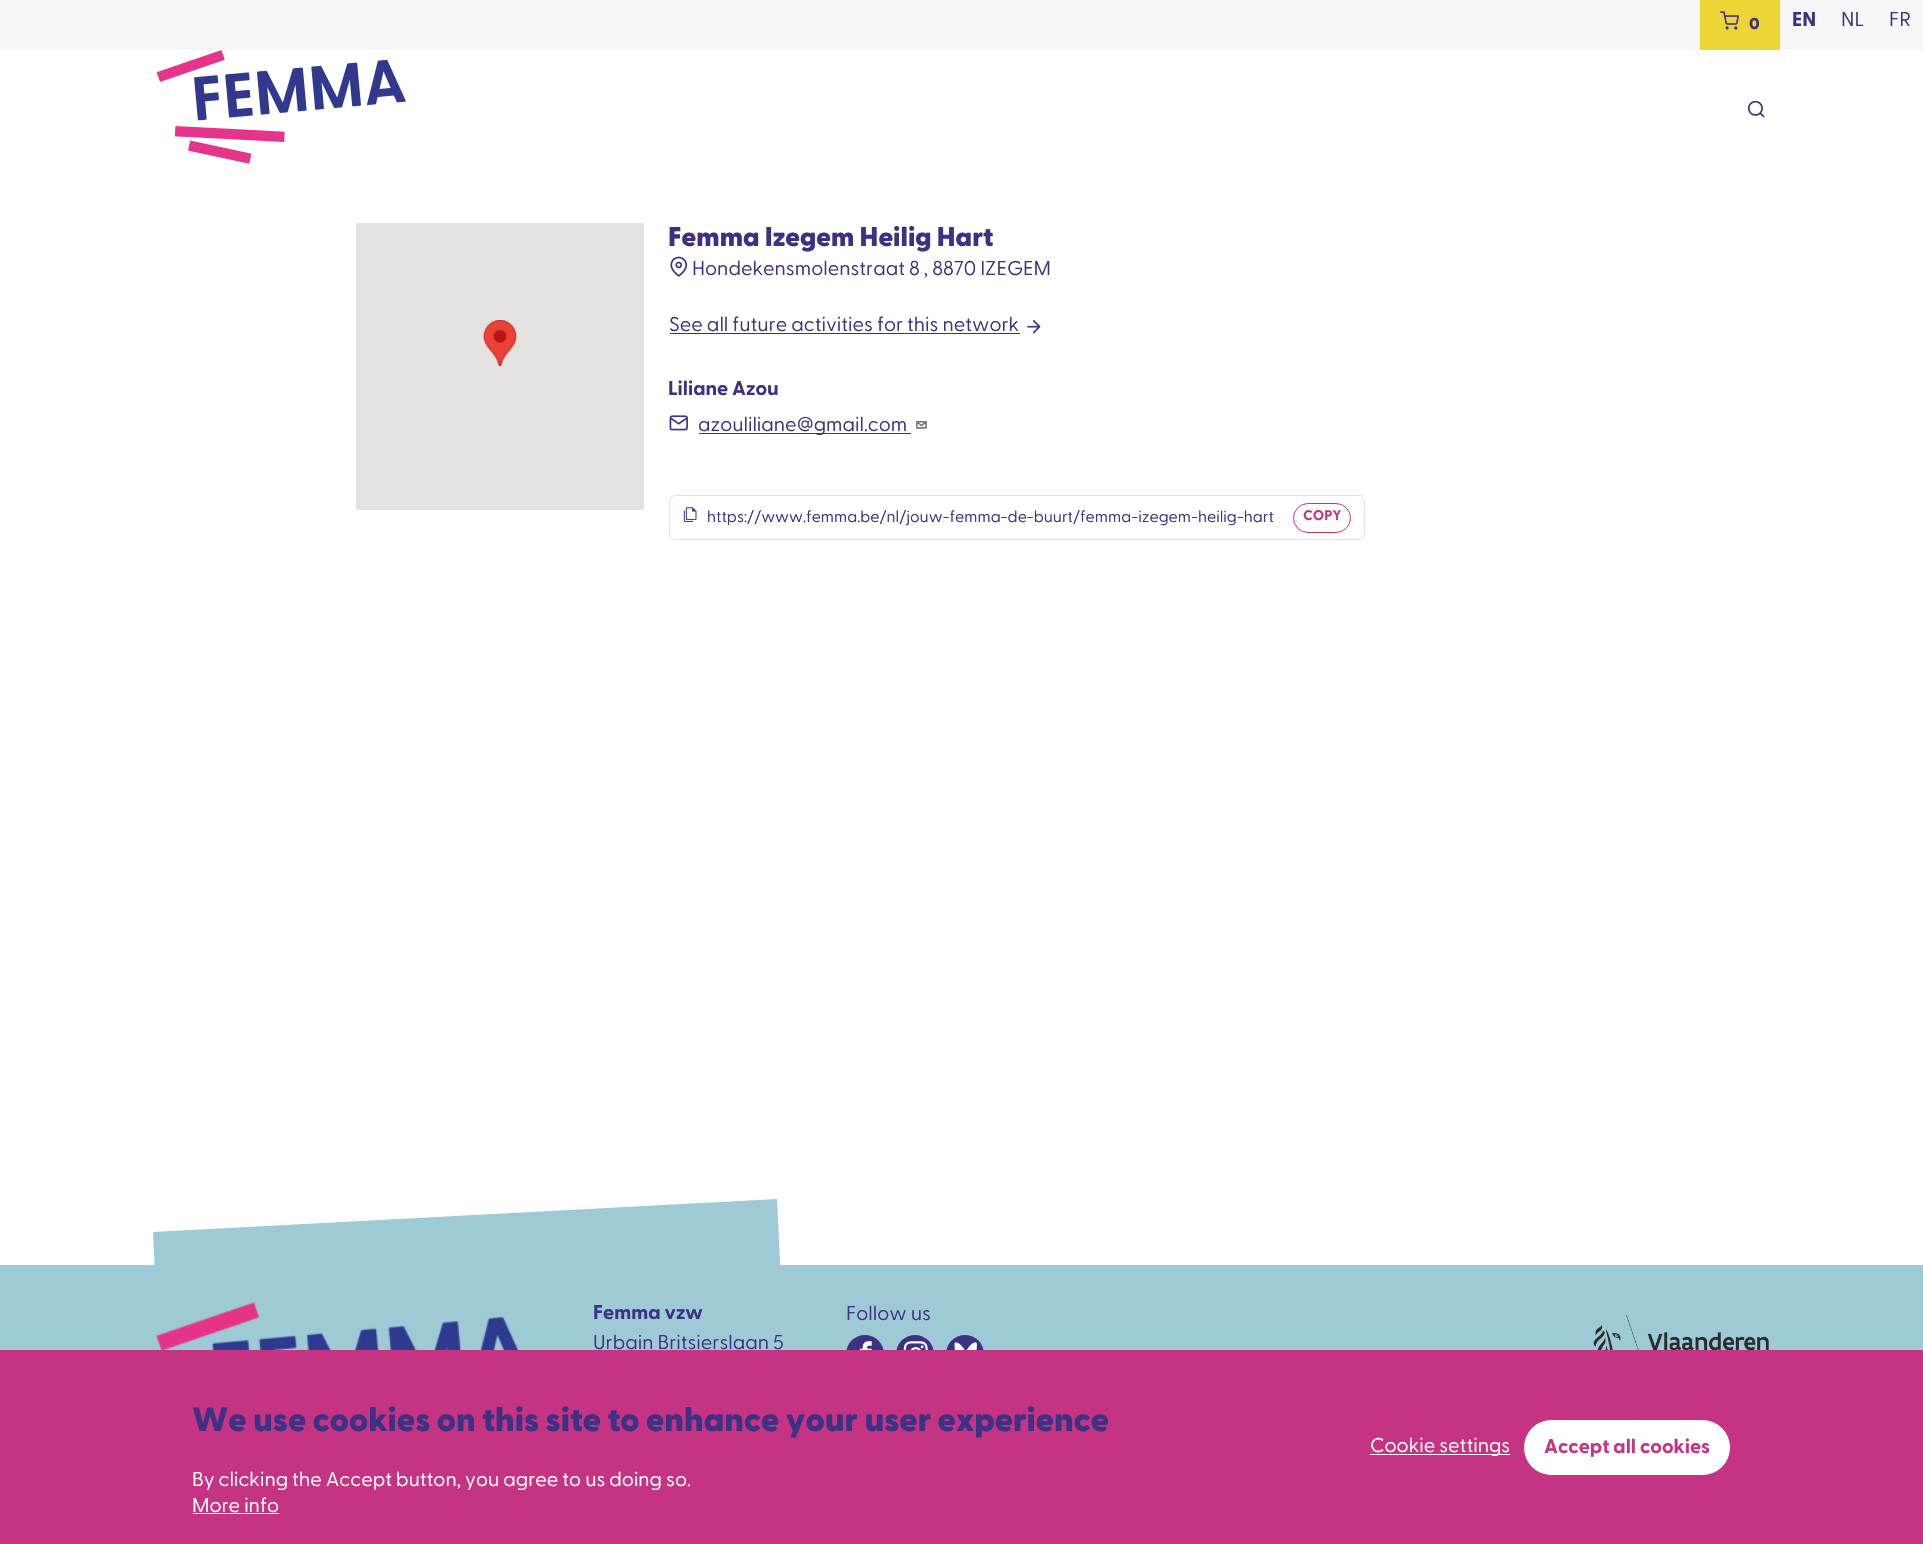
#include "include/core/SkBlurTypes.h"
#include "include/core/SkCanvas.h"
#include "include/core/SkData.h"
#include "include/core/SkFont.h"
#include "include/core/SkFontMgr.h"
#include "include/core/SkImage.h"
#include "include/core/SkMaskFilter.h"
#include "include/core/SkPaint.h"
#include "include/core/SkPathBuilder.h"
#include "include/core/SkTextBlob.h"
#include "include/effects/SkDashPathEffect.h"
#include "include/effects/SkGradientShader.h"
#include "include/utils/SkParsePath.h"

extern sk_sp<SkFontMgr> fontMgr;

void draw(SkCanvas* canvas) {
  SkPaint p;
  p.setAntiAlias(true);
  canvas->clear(SK_ColorWHITE);
  p.setColor(SkColorSetRGB(247, 247, 247));
  canvas->drawRect(SkRect::MakeLTRB(0, 0, 1923, 50), p);
  p.setColor(SkColorSetRGB(237, 213, 53));
  canvas->drawRect(SkRect::MakeLTRB(1700, 0, 1780, 50), p);
  canvas->drawImageRect(SkImages::DeferredFromEncodedData(SkData::MakeFromFileName("images/1.png")), SkRect::MakeLTRB(1720, 11, 1739, 30), SkSamplingOptions());
  canvas->drawImageRect(SkImages::DeferredFromEncodedData(SkData::MakeFromFileName("images/2.png")), SkRect::MakeLTRB(156, 50, 406, 164), SkSamplingOptions());
  canvas->drawImageRect(SkImages::DeferredFromEncodedData(SkData::MakeFromFileName("images/3.png")), SkRect::MakeLTRB(1747, 100, 1765, 118), SkSamplingOptions());
  p.setColor(SkColorSetRGB(229, 227, 223));
  canvas->drawRect(SkRect::MakeLTRB(356, 223, 644, 510), p);
  canvas->drawImageRect(SkImages::DeferredFromEncodedData(SkData::MakeFromFileName("images/4.png")), SkRect::MakeLTRB(483, 320, 517, 367), SkSamplingOptions());
  canvas->drawImageRect(SkImages::DeferredFromEncodedData(SkData::MakeFromFileName("images/5.png")), SkRect::MakeLTRB(670, 256, 688, 277), SkSamplingOptions());
  p.setColor(SkColorSetRGB(61, 49, 132));
  canvas->drawRect(SkRect::MakeLTRB(670, 333, 1020, 334), p);
  canvas->drawImageRect(SkImages::DeferredFromEncodedData(SkData::MakeFromFileName("images/6.png")), SkRect::MakeLTRB(1027, 320, 1041, 334), SkSamplingOptions());
  canvas->drawImageRect(SkImages::DeferredFromEncodedData(SkData::MakeFromFileName("images/7.png")), SkRect::MakeLTRB(669, 415, 688, 431), SkSamplingOptions());
  canvas->drawRect(SkRect::MakeLTRB(699, 433, 911, 434), p);
  canvas->drawImageRect(SkImages::DeferredFromEncodedData(SkData::MakeFromFileName("images/8.png")), SkRect::MakeLTRB(916, 421, 927, 429), SkSamplingOptions());
  p.setStyle(SkPaint::kStroke_Style);
  p.setStrokeWidth(1);
  p.setColor(SkColorSetRGB(221, 223, 246));
  canvas->drawRoundRect(SkRect::MakeLTRB(669.5f, 495.5f, 1364.5f, 539.5f), 5.5f, 5.5f, p);
  canvas->drawImageRect(SkImages::DeferredFromEncodedData(SkData::MakeFromFileName("images/9.png")), SkRect::MakeLTRB(683, 507, 697, 522), SkSamplingOptions());
  p.setColor(SkColorSetRGB(197, 51, 131));
  canvas->drawRoundRect(SkRect::MakeLTRB(1293.5f, 503.5f, 1350.5f, 532.5f), 14.5f, 14.5f, p);
  p.setStyle(SkPaint::kFill_Style);
  p.setColor(SkColorSetRGB(158, 202, 214));
  canvas->drawRect(SkRect::MakeLTRB(0, 1265, 1923, 1350), p);
  canvas->drawPath(SkPathBuilder().moveTo(153, 1232).lineTo(777, 1199).lineTo(783, 1324).lineTo(159, 1357).close().detach(), p);
  canvas->drawImageRect(SkImages::DeferredFromEncodedData(SkData::MakeFromFileName("images/10.png")), SkRect::MakeLTRB(156, 1302, 519, 1350), SkSamplingOptions());
  p.setColor(SkColorSetRGB(61, 49, 132));
  canvas->drawCircle(865, 1354, 19, p);
  canvas->drawImageRect(SkImages::DeferredFromEncodedData(SkData::MakeFromFileName("images/11.png")), SkRect::MakeLTRB(859, 1341, 872, 1350), SkSamplingOptions());
  canvas->drawCircle(915, 1354, 19, p);
  canvas->drawImageRect(SkImages::DeferredFromEncodedData(SkData::MakeFromFileName("images/12.png")), SkRect::MakeLTRB(903, 1341, 928, 1350), SkSamplingOptions());
  canvas->drawCircle(965, 1354, 19, p);
  canvas->drawImageRect(SkImages::DeferredFromEncodedData(SkData::MakeFromFileName("images/13.png")), SkRect::MakeLTRB(954, 1342, 977, 1350), SkSamplingOptions());
  canvas->drawImageRect(SkImages::DeferredFromEncodedData(SkData::MakeFromFileName("images/14.png")), SkRect::MakeLTRB(1593, 1315, 1769, 1350), SkSamplingOptions());
  p.setColor(SkColorSetRGB(197, 51, 131));
  canvas->drawRect(SkRect::MakeLTRB(0, 1350, 1923, 1544), p);
  p.setColor(SK_ColorWHITE);
  canvas->drawRect(SkRect::MakeLTRB(193, 1513, 279, 1514), p);
  canvas->drawRect(SkRect::MakeLTRB(1370, 1454, 1510, 1455), p);
  canvas->drawRoundRect(SkRect::MakeLTRB(1523.5f, 1419.5f, 1730.5f, 1475.5f), 28, 28, p);
  p.setStyle(SkPaint::kStroke_Style);
  p.setColor(SkColorSetRGB(197, 51, 131));
  canvas->drawRoundRect(SkRect::MakeLTRB(1523.5f, 1419.5f, 1730.5f, 1475.5f), 28, 28, p);
  SkFont font1(fontMgr->matchFamilyStyle("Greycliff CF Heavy", SkFontStyle(900, SkFontStyle::kNormal_Width, SkFontStyle::kUpright_Slant)), 16);
  font1.setSubpixel(true);
  p.setStyle(SkPaint::kFill_Style);
  p.setColor(SkColorSetRGB(61, 49, 132));
  canvas->drawString("0", 1749, 29, font1, p);
  SkFont font2(fontMgr->matchFamilyStyle("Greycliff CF", SkFontStyle::Bold()), 20);
  font2.setSubpixel(true);
  canvas->drawString("EN", 1792, 26, font2, p);
  SkFont font3(fontMgr->matchFamilyStyle("Greycliff CF", SkFontStyle::Normal()), 20);
  font3.setSubpixel(true);
  canvas->drawString("NL", 1841, 26, font3, p);
  canvas->drawString("FR", 1889, 26, font3, p);
  SkFont font4(fontMgr->matchFamilyStyle("Greycliff CF Heavy", SkFontStyle(900, SkFontStyle::kNormal_Width, SkFontStyle::kUpright_Slant)), 27);
  font4.setSubpixel(true);
  canvas->drawString("Femma Izegem Heilig Hart", 668, 246, font4, p);
  canvas->drawString("Hondekensmolenstraat 8 , 8870 IZEGEM", 692, 275, font3, p);
  canvas->drawString("See all future activities for this network", 669, 331, font3, p);
  canvas->drawString("Liliane Azou", 668, 395, font2, p);
  canvas->drawString("azouliliane@gmail.com", 698, 431, font3, p);
  SkFont font5(fontMgr->matchFamilyStyle("Greycliff CF", SkFontStyle::Normal()), 16);
  font5.setSubpixel(true);
  canvas->drawString("https://www.femma.be/nl/jouw-femma-de-buurt/femma-izegem-heilig-hart", 707, 522, font5, p);
  SkFont font6(fontMgr->matchFamilyStyle("Greycliff CF", SkFontStyle::Bold()), 14);
  font6.setSubpixel(true);
  p.setColor(SkColorSetRGB(197, 51, 131));
  canvas->drawString("COPY", 1303, 520, font6, p);
  p.setColor(SkColorSetRGB(61, 49, 132));
  canvas->drawString("Femma vzw", 593, 1319, font2, p);
  canvas->drawString("Urbain Britsierslaan 5", 593, 1349, font3, p);
  canvas->drawString("Follow us", 846, 1320, font3, p);
  SkFont font7(fontMgr->matchFamilyStyle("Greycliff CF Heavy", SkFontStyle(900, SkFontStyle::kNormal_Width, SkFontStyle::kUpright_Slant)), 33.6f);
  font7.setSubpixel(true);
  canvas->drawString("We use cookies on this site to enhance your user experience", 192, 1431, font7, p);
  p.setColor(SK_ColorWHITE);
  canvas->drawString("By clicking the Accept button, you agree to us doing so.", 192, 1486, font3, p);
  canvas->drawString("More info", 192, 1512, font3, p);
  canvas->drawString("Cookie settings", 1370, 1452, font3, p);
  p.setColor(SkColorSetRGB(197, 51, 131));
  canvas->drawString("Accept all cookies", 1544, 1453, font2, p);
}
